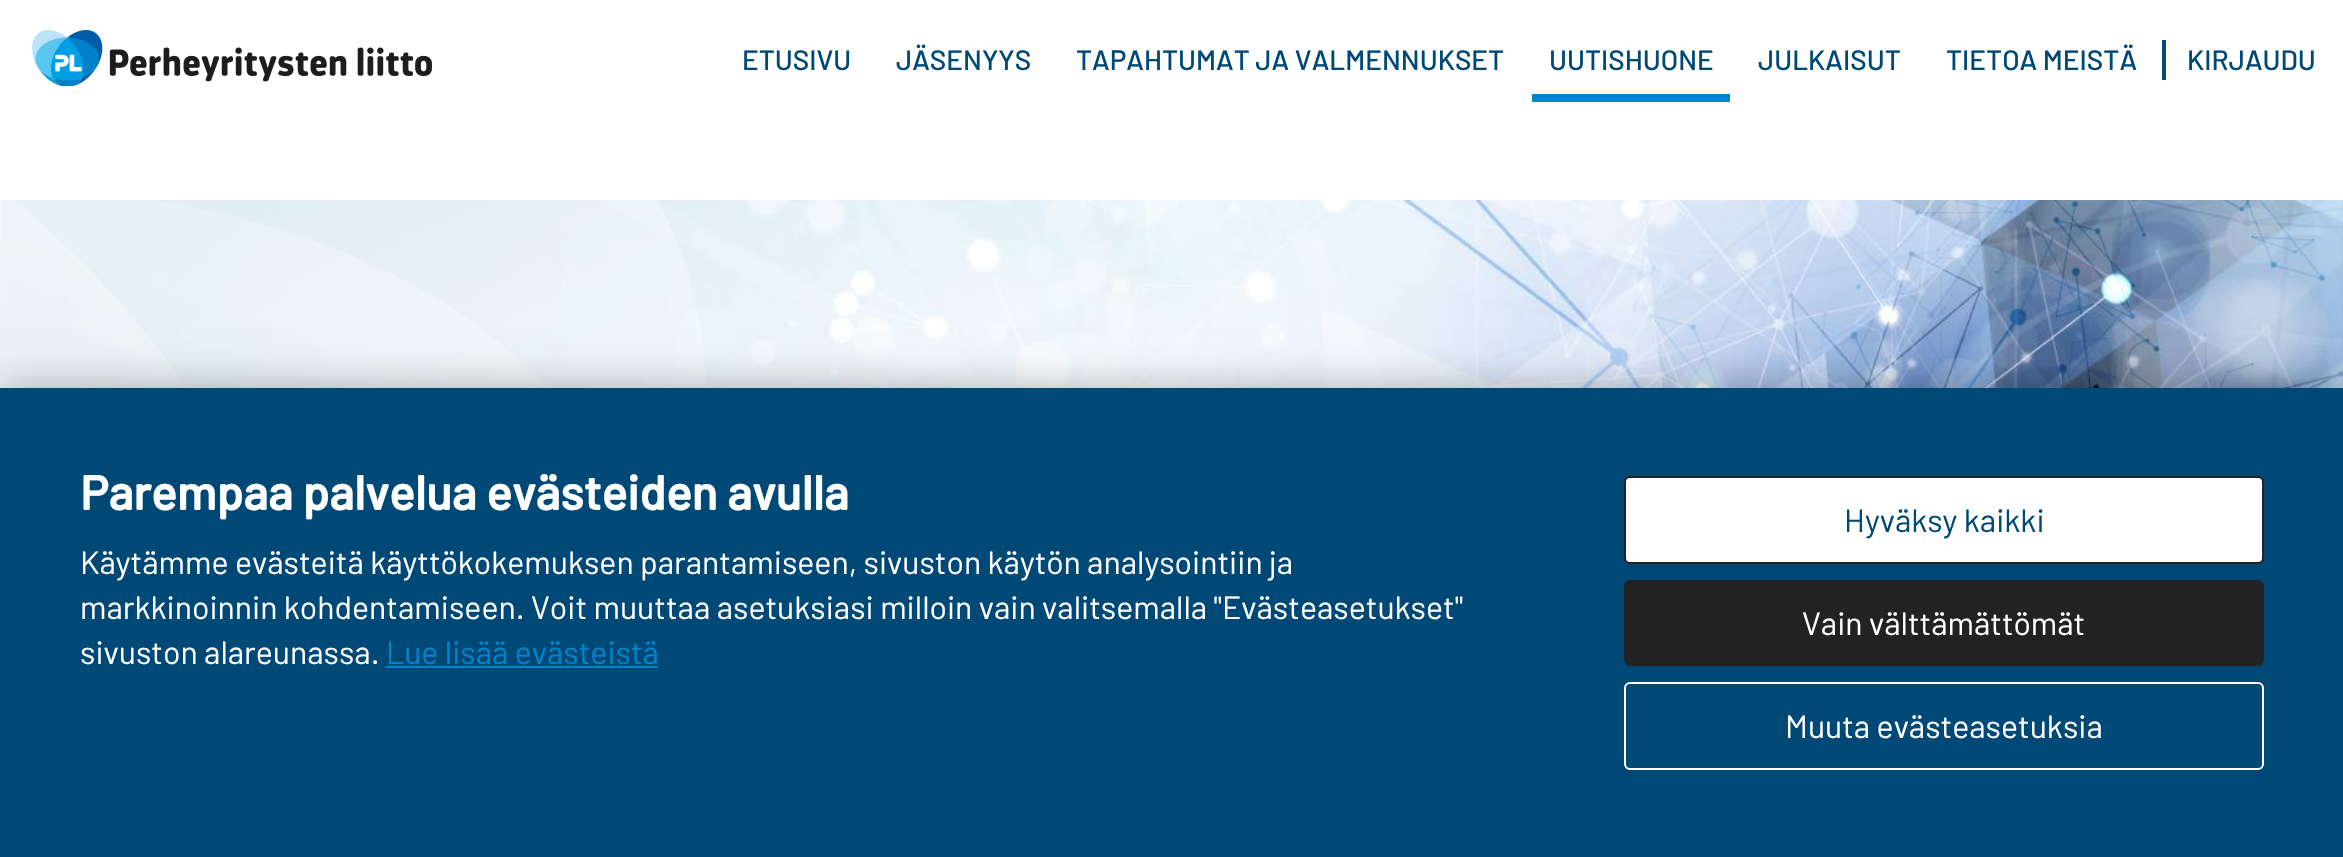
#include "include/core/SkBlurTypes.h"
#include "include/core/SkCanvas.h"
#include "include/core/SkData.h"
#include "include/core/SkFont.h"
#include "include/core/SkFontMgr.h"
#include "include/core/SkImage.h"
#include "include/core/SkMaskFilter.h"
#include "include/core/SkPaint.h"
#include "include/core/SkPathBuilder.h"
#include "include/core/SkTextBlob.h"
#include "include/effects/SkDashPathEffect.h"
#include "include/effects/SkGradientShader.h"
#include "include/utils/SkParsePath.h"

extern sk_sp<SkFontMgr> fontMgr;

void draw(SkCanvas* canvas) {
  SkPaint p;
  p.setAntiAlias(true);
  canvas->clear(SK_ColorWHITE);
  canvas->drawImageRect(SkImages::DeferredFromEncodedData(SkData::MakeFromFileName("images/1.png")), SkRect::MakeLTRB(32, 30, 432, 86), SkSamplingOptions());
  p.setColor(SkColorSetRGB(0, 133, 202));
  canvas->drawRect(SkRect::MakeLTRB(1532, 94, 1730, 102), p);
  p.setColor(SkColorSetRGB(0, 73, 118));
  canvas->drawRect(SkRect::MakeLTRB(2162, 40, 2166, 80), p);
  canvas->drawImageRect(SkImages::DeferredFromEncodedData(SkData::MakeFromFileName("images/2.png")), SkRect::MakeLTRB(0, 200, 2343, 388), SkSamplingOptions());
  canvas->drawImageRect(SkImages::DeferredFromEncodedData(SkData::MakeFromFileName("images/3.png")), SkRect::MakeLTRB(0, 200, 706, 388), SkSamplingOptions());
  p.setColor(SkColorSetARGB(77, 0, 0, 0));
  p.setMaskFilter(SkMaskFilter::MakeBlur(kNormal_SkBlurStyle, 20));
  canvas->drawRect(SkRect::MakeLTRB(0, 388, 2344, 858), p);
  p.setMaskFilter(nullptr);
  p.setColor(SkColorSetRGB(0, 73, 118));
  canvas->drawRect(SkRect::MakeLTRB(0, 388, 2343, 857), p);
  p.setColor(SkColorSetRGB(0, 133, 202));
  canvas->drawRect(SkRect::MakeLTRB(386, 666, 658, 668), p);
  p.setColor(SK_ColorWHITE);
  canvas->drawRoundRect(SkRect::MakeLTRB(1625, 477, 2263, 563), 5, 5, p);
  p.setStyle(SkPaint::kStroke_Style);
  p.setStrokeWidth(2);
  p.setColor(SkColorSetRGB(34, 34, 34));
  canvas->drawRoundRect(SkRect::MakeLTRB(1625, 477, 2263, 563), 5, 5, p);
  p.setStyle(SkPaint::kFill_Style);
  canvas->drawRoundRect(SkRect::MakeLTRB(1625, 581, 2263, 665), 5, 5, p);
  p.setStyle(SkPaint::kStroke_Style);
  canvas->drawRoundRect(SkRect::MakeLTRB(1625, 581, 2263, 665), 5, 5, p);
  p.setColor(SK_ColorWHITE);
  canvas->drawRoundRect(SkRect::MakeLTRB(1625, 683, 2263, 769), 5, 5, p);
  SkFont font1(fontMgr->matchFamilyStyle("Barlow", SkFontStyle(500, SkFontStyle::kNormal_Width, SkFontStyle::kUpright_Slant)), 28);
  font1.setSubpixel(true);
  p.setStyle(SkPaint::kFill_Style);
  p.setColor(SkColorSetRGB(0, 73, 118));
  canvas->drawString("ETUSIVU", 742, 70, font1, p);
  canvas->drawString("JÄSENYYS", 896, 70, font1, p);
  canvas->drawString("TAPAHTUMAT JA VALMENNUKSET", 1076, 70, font1, p);
  canvas->drawString("UUTISHUONE", 1549, 70, font1, p);
  canvas->drawString("JULKAISUT", 1758, 70, font1, p);
  canvas->drawString("TIETOA MEISTÄ", 1946, 70, font1, p);
  canvas->drawString("KIRJAUDU", 2187, 70, font1, p);
  SkFont font2(fontMgr->matchFamilyStyle("Barlow", SkFontStyle::Bold()), 48);
  font2.setSubpixel(true);
  p.setColor(SK_ColorWHITE);
  canvas->drawString("Parempaa palvelua evästeiden avulla", 80, 510, font2, p);
  SkFont font3(fontMgr->matchFamilyStyle("Barlow", SkFontStyle::Normal()), 32);
  font3.setSubpixel(true);
  canvas->drawString("Käytämme evästeitä käyttökokemuksen parantamiseen, sivuston käytön analysointiin ja", 80, 574, font3, p);
  canvas->drawString("markkinoinnin kohdentamiseen. Voit muuttaa asetuksiasi milloin vain valitsemalla \"Evästeasetukset\"", 80, 619, font3, p);
  canvas->drawString("sivuston alareunassa.", 80, 664, font3, p);
  p.setColor(SkColorSetRGB(0, 133, 202));
  canvas->drawString("Lue lisää evästeistä", 386, 664, font3, p);
  p.setColor(SkColorSetRGB(0, 73, 118));
  canvas->drawString("Hyväksy kaikki", 1844, 532, font3, p);
  p.setColor(SK_ColorWHITE);
  canvas->drawString("Vain välttämättömät", 1802, 635, font3, p);
  canvas->drawString("Muuta evästeasetuksia", 1785, 738, font3, p);
}
